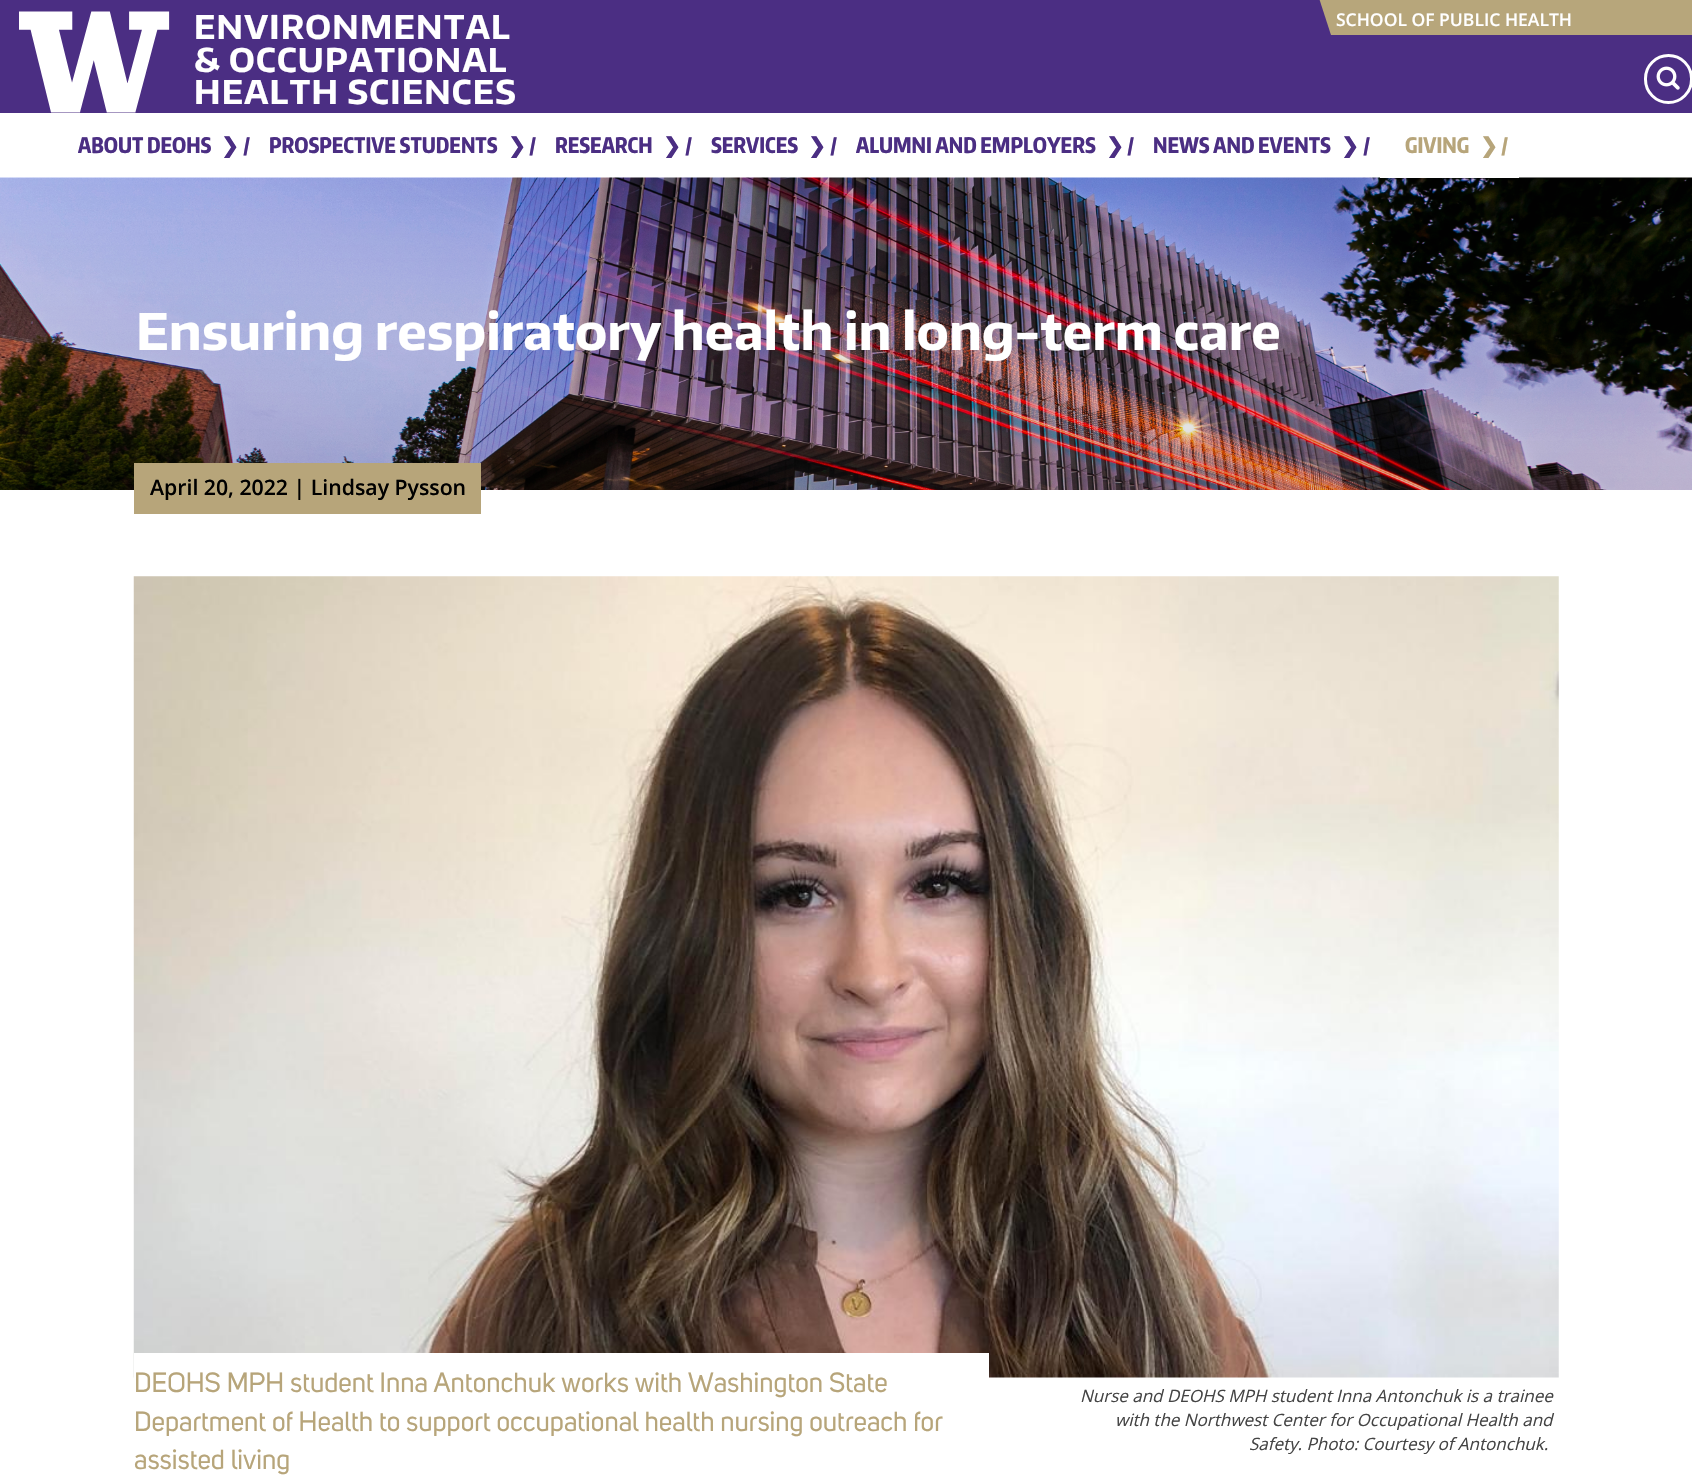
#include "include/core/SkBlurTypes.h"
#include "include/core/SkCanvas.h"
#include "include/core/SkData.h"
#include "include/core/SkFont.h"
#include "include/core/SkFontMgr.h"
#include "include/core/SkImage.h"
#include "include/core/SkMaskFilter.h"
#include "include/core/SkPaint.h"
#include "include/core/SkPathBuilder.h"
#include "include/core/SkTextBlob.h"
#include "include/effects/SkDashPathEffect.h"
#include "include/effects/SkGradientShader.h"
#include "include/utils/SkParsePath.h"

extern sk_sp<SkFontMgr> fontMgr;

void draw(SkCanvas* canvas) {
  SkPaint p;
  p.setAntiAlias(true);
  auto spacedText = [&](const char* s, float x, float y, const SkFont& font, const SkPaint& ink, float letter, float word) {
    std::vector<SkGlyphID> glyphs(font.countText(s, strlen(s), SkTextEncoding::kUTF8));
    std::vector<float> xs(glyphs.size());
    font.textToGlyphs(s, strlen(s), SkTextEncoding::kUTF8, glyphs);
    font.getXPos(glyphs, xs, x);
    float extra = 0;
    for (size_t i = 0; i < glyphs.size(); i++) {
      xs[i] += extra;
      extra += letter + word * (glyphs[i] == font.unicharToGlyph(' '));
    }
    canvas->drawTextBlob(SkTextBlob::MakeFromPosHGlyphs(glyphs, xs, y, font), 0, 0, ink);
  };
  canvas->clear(SK_ColorWHITE);
  p.setColor(SkColorSetRGB(75, 46, 131));
  canvas->drawRect(SkRect::MakeLTRB(0, 0, 1692, 113), p);
  canvas->drawImageRect(SkImages::DeferredFromEncodedData(SkData::MakeFromFileName("images/1.png")), SkRect::MakeLTRB(19, 11, 170, 113), SkSamplingOptions());
  p.setColor(SkColorSetRGB(183, 166, 123));
  canvas->drawPath(SkPathBuilder().moveTo(1692, 35).lineTo(1692, -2).lineTo(1319, -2).lineTo(1331, 35).close().detach(), p);
  p.setStyle(SkPaint::kStroke_Style);
  p.setStrokeWidth(3);
  p.setColor(SK_ColorWHITE);
  canvas->drawRoundRect(SkRect::MakeLTRB(1645.5f, 55.5f, 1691.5f, 102.5f), 23, 23, p);
  canvas->drawImageRect(SkImages::DeferredFromEncodedData(SkData::MakeFromFileName("images/2.png")), SkRect::MakeLTRB(1656, 66, 1680, 90), SkSamplingOptions());
  canvas->drawImageRect(SkImages::DeferredFromEncodedData(SkData::MakeFromFileName("images/3.png")), SkRect::MakeLTRB(0, 177, 1692, 490), SkSamplingOptions());
  p.setStyle(SkPaint::kFill_Style);
  canvas->drawRect(SkRect::MakeLTRB(1380, 177, 1519, 178), p);
  p.setColor(SkColorSetRGB(183, 165, 122));
  canvas->drawRect(SkRect::MakeLTRB(134, 463, 481, 514), p);
  canvas->drawImageRect(SkImages::DeferredFromEncodedData(SkData::MakeFromFileName("images/4.png")), SkRect::MakeLTRB(133, 576, 1559, 1378), SkSamplingOptions());
  p.setColor(SK_ColorWHITE);
  canvas->drawRect(SkRect::MakeLTRB(134, 1353, 989, 1378), p);
  SkFont font1(fontMgr->matchFamilyStyle("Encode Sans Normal", SkFontStyle::Bold()), 32.5f);
  font1.setSubpixel(true);
  spacedText("ENVIRONMENTAL", 194, 39, font1, p, 1.25f, 0);
  spacedText("& OCCUPATIONAL", 194, 72, font1, p, 1.25f, 0);
  spacedText("HEALTH SCIENCES", 194, 104, font1, p, 1.25f, 0);
  SkFont font2(fontMgr->matchFamilyStyle("Open Sans", SkFontStyle(600, SkFontStyle::kNormal_Width, SkFontStyle::kUpright_Slant)), 17.5f);
  font2.setSubpixel(true);
  canvas->drawString("SCHOOL OF PUBLIC HEALTH", 1336, 26, font2, p);
  SkFont font3(fontMgr->matchFamilyStyle("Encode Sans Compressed", SkFontStyle(800, SkFontStyle::kNormal_Width, SkFontStyle::kUpright_Slant)), 21.25f);
  font3.setSubpixel(true);
  p.setColor(SkColorSetRGB(75, 46, 131));
  canvas->drawString("ABOUT DEOHS", 78, 153, font3, p);
  SkFont font4(fontMgr->matchFamilyStyle("DejaVu Sans", SkFontStyle::Bold()), 21.25f);
  font4.setSubpixel(true);
  canvas->drawString("❯", 221, 153, font4, p);
  canvas->drawString("/", 243, 153, font3, p);
  canvas->drawString("PROSPECTIVE STUDENTS", 269, 153, font3, p);
  canvas->drawString("❯", 508, 153, font4, p);
  canvas->drawString("/", 529, 153, font3, p);
  canvas->drawString("RESEARCH", 555, 153, font3, p);
  canvas->drawString("❯", 663, 153, font4, p);
  canvas->drawString("/", 685, 153, font3, p);
  canvas->drawString("SERVICES", 711, 153, font3, p);
  canvas->drawString("❯", 808, 153, font4, p);
  canvas->drawString("/", 830, 153, font3, p);
  canvas->drawString("ALUMNI AND EMPLOYERS", 856, 153, font3, p);
  canvas->drawString("❯", 1106, 153, font4, p);
  canvas->drawString("/", 1127, 153, font3, p);
  canvas->drawString("NEWS AND EVENTS", 1153, 153, font3, p);
  canvas->drawString("❯", 1341, 153, font4, p);
  canvas->drawString("/", 1363, 153, font3, p);
  p.setColor(SkColorSetRGB(183, 165, 122));
  canvas->drawString("GIVING", 1405, 153, font3, p);
  canvas->drawString("❯", 1480, 153, font4, p);
  canvas->drawString("/", 1501, 153, font3, p);
  SkFont font5(fontMgr->matchFamilyStyle("Encode Sans Normal", SkFontStyle::Bold()), 50);
  font5.setSubpixel(true);
  p.setColor(SK_ColorWHITE);
  canvas->drawString("Ensuring respiratory health in long-term care", 136, 350, font5, p);
  SkFont font6(fontMgr->matchFamilyStyle("Open Sans", SkFontStyle(600, SkFontStyle::kNormal_Width, SkFontStyle::kUpright_Slant)), 21.25f);
  font6.setSubpixel(true);
  p.setColor(SK_ColorBLACK);
  canvas->drawString("April 20, 2022 | Lindsay Pysson", 150, 495, font6, p);
  SkFont font7(fontMgr->matchFamilyStyle("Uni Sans", SkFontStyle::Normal()), 27.5f);
  font7.setSubpixel(true);
  p.setColor(SkColorSetRGB(183, 165, 122));
  canvas->drawString("DEOHS MPH student Inna Antonchuk works with Washington State", 134, 1392, font7, p);
  canvas->drawString("Department of Health to support occupational health nursing outreach for", 134, 1431, font7, p);
  canvas->drawString("assisted living", 134, 1469, font7, p);
  SkFont font8(fontMgr->matchFamilyStyle("Open Sans", SkFontStyle::Italic()), 17);
  font8.setSubpixel(true);
  p.setColor(SkColorSetRGB(68, 68, 68));
  canvas->drawString("Nurse and DEOHS MPH student Inna Antonchuk is a trainee", 1080, 1402, font8, p);
  canvas->drawString("with the Northwest Center for Occupational Health and", 1115, 1426, font8, p);
  canvas->drawString("Safety. Photo: Courtesy of Antonchuk.", 1249, 1450, font8, p);
}
